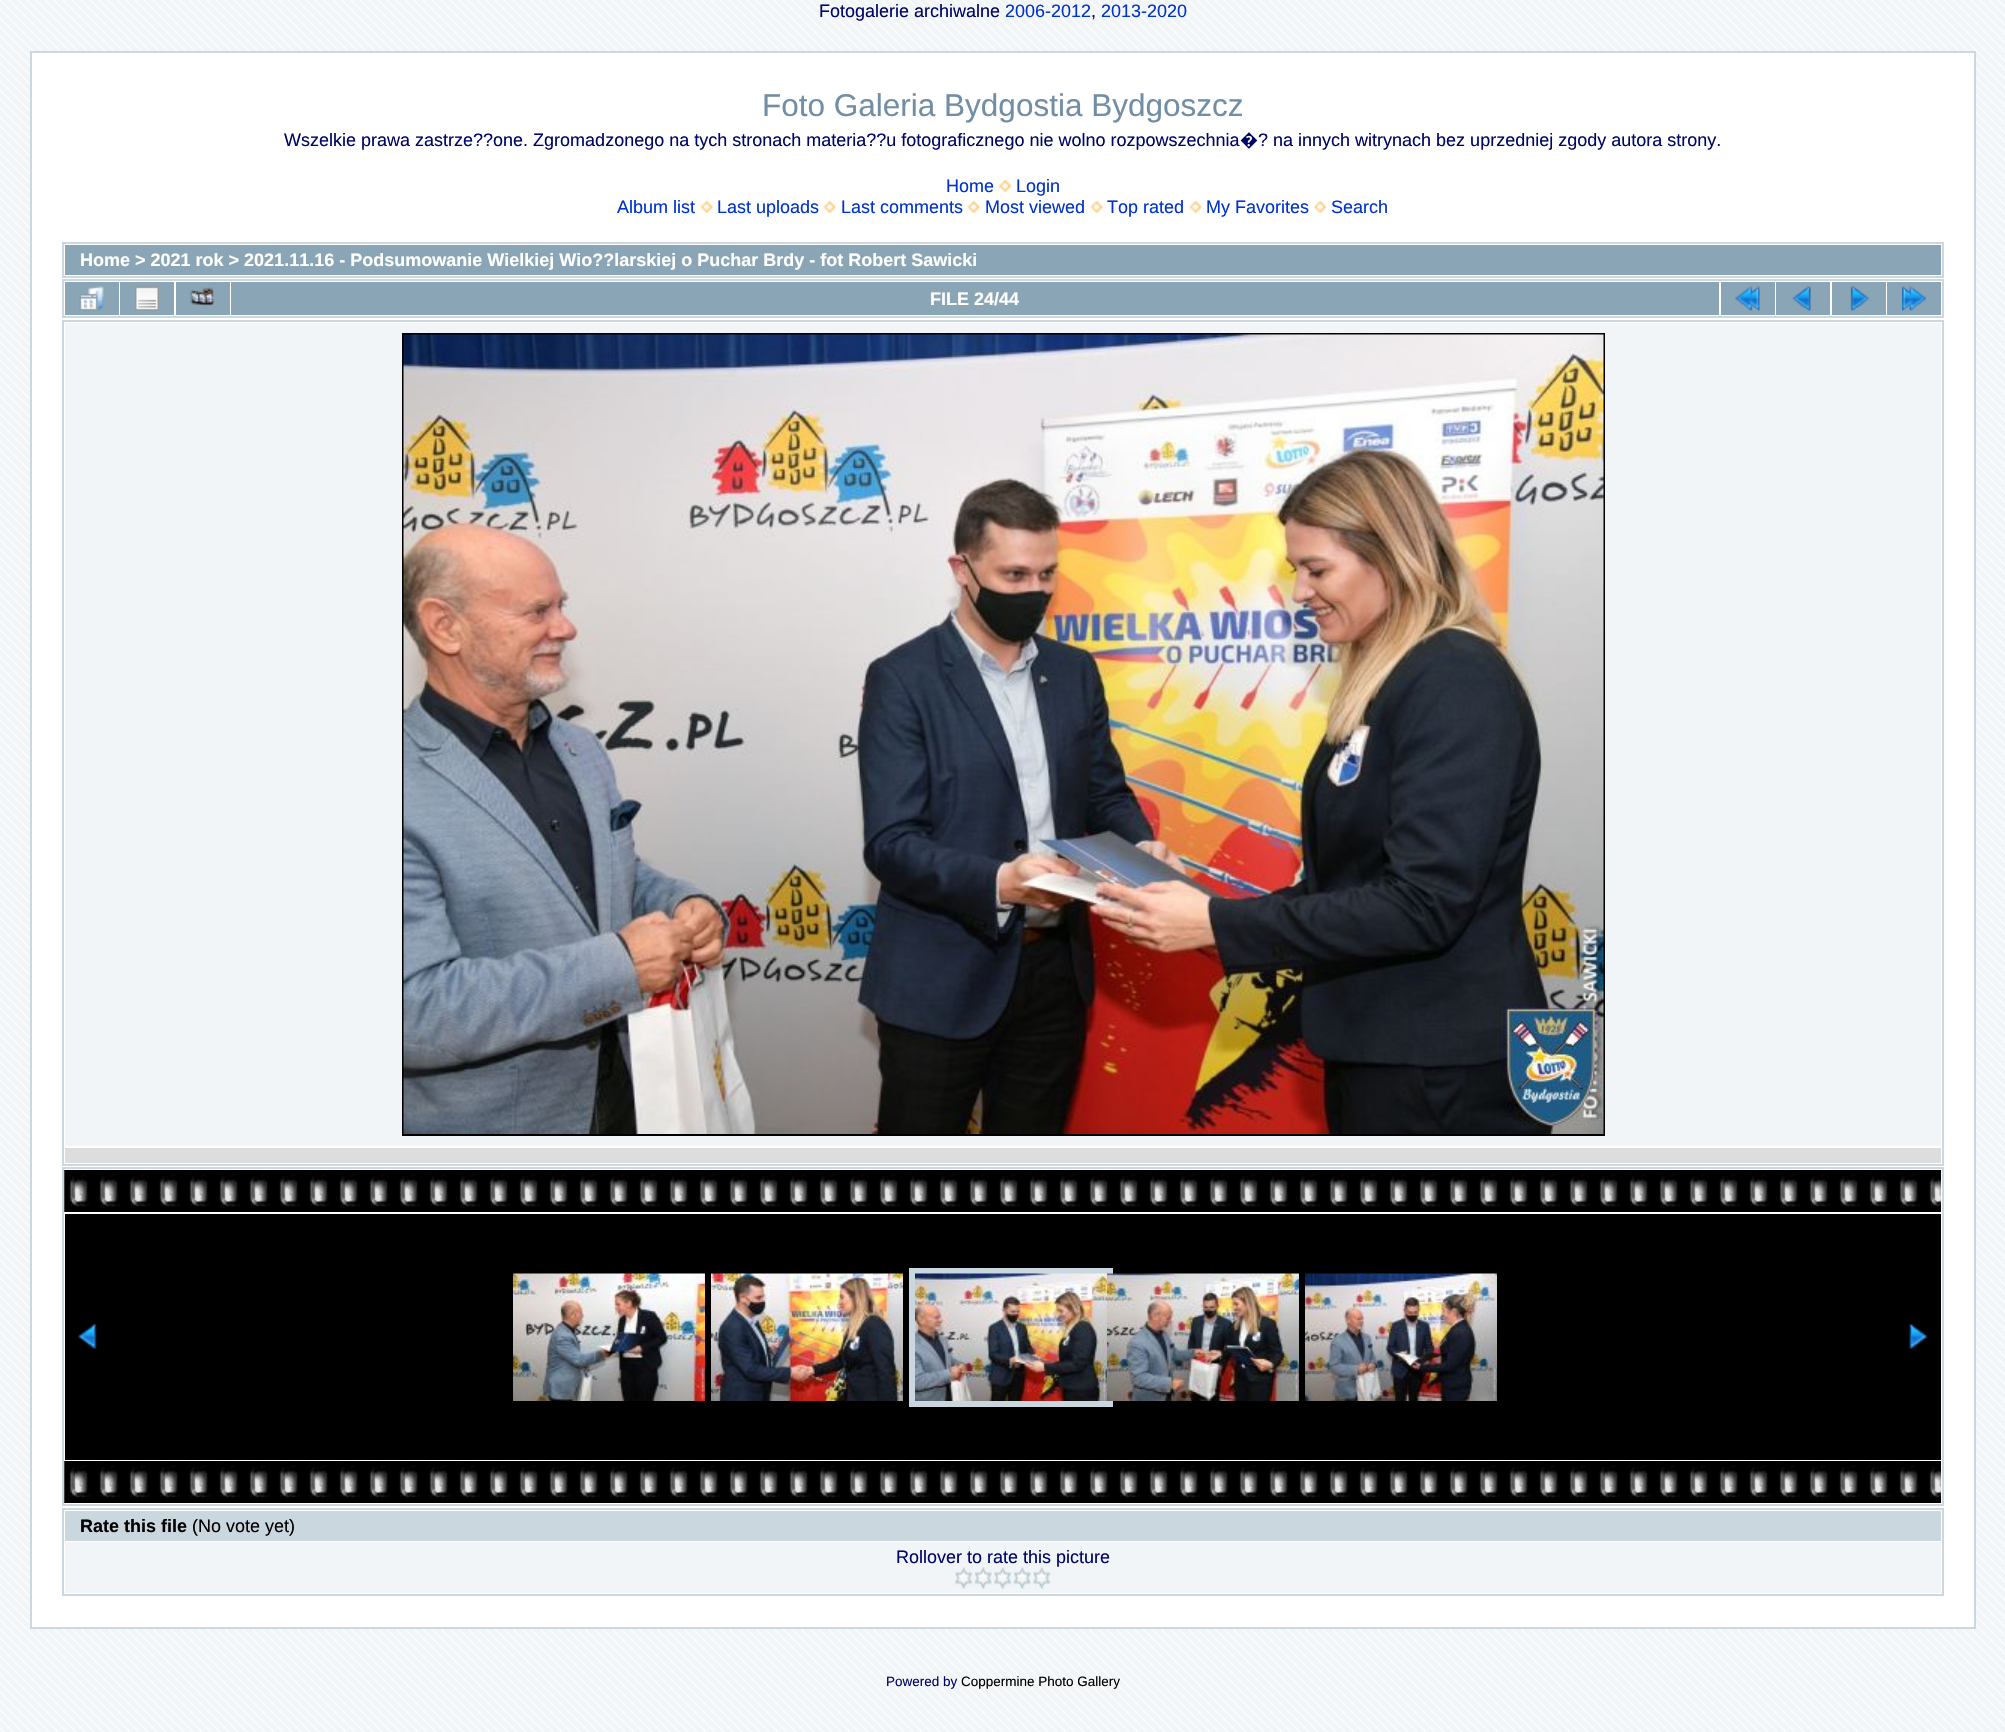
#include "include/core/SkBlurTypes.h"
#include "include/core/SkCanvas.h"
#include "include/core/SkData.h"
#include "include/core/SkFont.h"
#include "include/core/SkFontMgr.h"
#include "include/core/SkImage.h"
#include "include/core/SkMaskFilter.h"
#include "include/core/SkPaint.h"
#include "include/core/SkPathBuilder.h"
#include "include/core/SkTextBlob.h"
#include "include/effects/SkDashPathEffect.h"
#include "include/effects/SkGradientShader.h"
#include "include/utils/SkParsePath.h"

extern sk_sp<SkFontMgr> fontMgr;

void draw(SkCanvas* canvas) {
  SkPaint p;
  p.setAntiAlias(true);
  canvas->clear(SkColorSetRGB(242, 245, 247));
  canvas->drawImageRect(SkImages::DeferredFromEncodedData(SkData::MakeFromFileName("images/1.png")), SkRect::MakeLTRB(0, 0, 2005, 1732), SkSamplingOptions());
  p.setColor(SK_ColorWHITE);
  canvas->drawRect(SkRect::MakeLTRB(31, 52, 1975, 1628), p);
  p.setStyle(SkPaint::kStroke_Style);
  p.setStrokeWidth(2);
  p.setColor(SkColorSetRGB(204, 215, 224));
  canvas->drawRect(SkRect::MakeLTRB(31, 52, 1975, 1628), p);
  canvas->drawImageRect(SkImages::DeferredFromEncodedData(SkData::MakeFromFileName("images/2.png")), SkRect::MakeLTRB(999, 180, 1011, 192), SkSamplingOptions());
  canvas->drawImageRect(SkImages::DeferredFromEncodedData(SkData::MakeFromFileName("images/3.png")), SkRect::MakeLTRB(700, 201, 713, 213), SkSamplingOptions());
  canvas->drawImageRect(SkImages::DeferredFromEncodedData(SkData::MakeFromFileName("images/4.png")), SkRect::MakeLTRB(823, 201, 836, 213), SkSamplingOptions());
  canvas->drawImageRect(SkImages::DeferredFromEncodedData(SkData::MakeFromFileName("images/4.png")), SkRect::MakeLTRB(967, 201, 980, 213), SkSamplingOptions());
  canvas->drawImageRect(SkImages::DeferredFromEncodedData(SkData::MakeFromFileName("images/4.png")), SkRect::MakeLTRB(1090, 201, 1103, 213), SkSamplingOptions());
  canvas->drawImageRect(SkImages::DeferredFromEncodedData(SkData::MakeFromFileName("images/3.png")), SkRect::MakeLTRB(1189, 201, 1202, 213), SkSamplingOptions());
  canvas->drawImageRect(SkImages::DeferredFromEncodedData(SkData::MakeFromFileName("images/2.png")), SkRect::MakeLTRB(1314, 201, 1326, 213), SkSamplingOptions());
  canvas->drawRect(SkRect::MakeLTRB(63, 243, 1943, 277), p);
  p.setStyle(SkPaint::kFill_Style);
  p.setColor(SkColorSetRGB(138, 165, 181));
  canvas->drawRect(SkRect::MakeLTRB(65, 245, 1941, 275), p);
  p.setStyle(SkPaint::kStroke_Style);
  p.setColor(SkColorSetRGB(204, 215, 224));
  canvas->drawRect(SkRect::MakeLTRB(63, 280, 1943, 317), p);
  p.setStyle(SkPaint::kFill_Style);
  p.setColor(SkColorSetRGB(138, 165, 181));
  canvas->drawRect(SkRect::MakeLTRB(65, 282, 119, 315), p);
  canvas->drawImageRect(SkImages::DeferredFromEncodedData(SkData::MakeFromFileName("images/5.png")), SkRect::MakeLTRB(79, 286, 104, 311), SkSamplingOptions());
  canvas->drawRect(SkRect::MakeLTRB(120, 282, 174, 315), p);
  canvas->drawImageRect(SkImages::DeferredFromEncodedData(SkData::MakeFromFileName("images/6.png")), SkRect::MakeLTRB(135, 286, 159, 311), SkSamplingOptions());
  canvas->drawRect(SkRect::MakeLTRB(176, 282, 230, 315), p);
  canvas->drawImageRect(SkImages::DeferredFromEncodedData(SkData::MakeFromFileName("images/7.png")), SkRect::MakeLTRB(190, 287, 215, 306), SkSamplingOptions());
  canvas->drawRect(SkRect::MakeLTRB(231, 282, 1719, 315), p);
  canvas->drawRect(SkRect::MakeLTRB(1721, 282, 1775, 315), p);
  canvas->drawImageRect(SkImages::DeferredFromEncodedData(SkData::MakeFromFileName("images/8.png")), SkRect::MakeLTRB(1735, 286, 1760, 311), SkSamplingOptions());
  canvas->drawRect(SkRect::MakeLTRB(1776, 282, 1830, 315), p);
  canvas->drawImageRect(SkImages::DeferredFromEncodedData(SkData::MakeFromFileName("images/9.png")), SkRect::MakeLTRB(1792, 286, 1811, 311), SkSamplingOptions());
  canvas->drawRect(SkRect::MakeLTRB(1832, 282, 1886, 315), p);
  canvas->drawImageRect(SkImages::DeferredFromEncodedData(SkData::MakeFromFileName("images/10.png")), SkRect::MakeLTRB(1850, 286, 1870, 311), SkSamplingOptions());
  canvas->drawRect(SkRect::MakeLTRB(1887, 282, 1941, 315), p);
  canvas->drawImageRect(SkImages::DeferredFromEncodedData(SkData::MakeFromFileName("images/11.png")), SkRect::MakeLTRB(1902, 286, 1926, 311), SkSamplingOptions());
  p.setStyle(SkPaint::kStroke_Style);
  p.setColor(SkColorSetRGB(204, 215, 224));
  canvas->drawRect(SkRect::MakeLTRB(63, 321, 1943, 1165), p);
  p.setStyle(SkPaint::kFill_Style);
  p.setColor(SkColorSetRGB(242, 245, 247));
  canvas->drawRect(SkRect::MakeLTRB(65, 323, 1941, 1146), p);
  p.setStyle(SkPaint::kStroke_Style);
  p.setColor(SK_ColorBLACK);
  canvas->drawRect(SkRect::MakeLTRB(403, 334, 1604, 1135), p);
  canvas->drawImageRect(SkImages::DeferredFromEncodedData(SkData::MakeFromFileName("images/12.png")), SkRect::MakeLTRB(403, 334, 1604, 1134), SkSamplingOptions());
  p.setStyle(SkPaint::kFill_Style);
  p.setColor(SkColorSetRGB(221, 221, 221));
  canvas->drawRect(SkRect::MakeLTRB(65, 1148, 1941, 1163), p);
  p.setStyle(SkPaint::kStroke_Style);
  p.setColor(SkColorSetRGB(204, 215, 224));
  canvas->drawRect(SkRect::MakeLTRB(63, 1168, 1943, 1505), p);
  canvas->drawImageRect(SkImages::DeferredFromEncodedData(SkData::MakeFromFileName("images/13.png")), SkRect::MakeLTRB(64, 1170, 1941, 1212), SkSamplingOptions());
  canvas->drawImageRect(SkImages::DeferredFromEncodedData(SkData::MakeFromFileName("images/14.png")), SkRect::MakeLTRB(64, 1170, 75, 1212), SkSamplingOptions());
  p.setStyle(SkPaint::kFill_Style);
  p.setColor(SK_ColorBLACK);
  canvas->drawRect(SkRect::MakeLTRB(65, 1214, 1941, 1460), p);
  canvas->drawImageRect(SkImages::DeferredFromEncodedData(SkData::MakeFromFileName("images/15.png")), SkRect::MakeLTRB(77, 1324, 97, 1349), SkSamplingOptions());
  canvas->drawImageRect(SkImages::DeferredFromEncodedData(SkData::MakeFromFileName("images/16.png")), SkRect::MakeLTRB(513, 1273, 705, 1401), SkSamplingOptions());
  canvas->drawImageRect(SkImages::DeferredFromEncodedData(SkData::MakeFromFileName("images/17.png")), SkRect::MakeLTRB(711, 1273, 903, 1401), SkSamplingOptions());
  p.setStyle(SkPaint::kStroke_Style);
  p.setStrokeWidth(6);
  p.setColor(SkColorSetRGB(203, 215, 222));
  canvas->drawRect(SkRect::MakeLTRB(912, 1271, 1110, 1404), p);
  canvas->drawImageRect(SkImages::DeferredFromEncodedData(SkData::MakeFromFileName("images/18.png")), SkRect::MakeLTRB(915, 1273, 1107, 1401), SkSamplingOptions());
  canvas->drawImageRect(SkImages::DeferredFromEncodedData(SkData::MakeFromFileName("images/19.png")), SkRect::MakeLTRB(1107, 1273, 1299, 1401), SkSamplingOptions());
  canvas->drawImageRect(SkImages::DeferredFromEncodedData(SkData::MakeFromFileName("images/20.png")), SkRect::MakeLTRB(1305, 1273, 1497, 1401), SkSamplingOptions());
  canvas->drawImageRect(SkImages::DeferredFromEncodedData(SkData::MakeFromFileName("images/21.png")), SkRect::MakeLTRB(1909, 1324, 1928, 1349), SkSamplingOptions());
  canvas->drawImageRect(SkImages::DeferredFromEncodedData(SkData::MakeFromFileName("images/22.png")), SkRect::MakeLTRB(64, 1461, 1941, 1503), SkSamplingOptions());
  canvas->drawImageRect(SkImages::DeferredFromEncodedData(SkData::MakeFromFileName("images/14.png")), SkRect::MakeLTRB(64, 1461, 75, 1503), SkSamplingOptions());
  p.setStrokeWidth(2);
  p.setColor(SkColorSetRGB(204, 215, 224));
  canvas->drawRect(SkRect::MakeLTRB(63, 1509, 1943, 1595), p);
  p.setStyle(SkPaint::kFill_Style);
  p.setColor(SkColorSetRGB(203, 215, 222));
  canvas->drawRect(SkRect::MakeLTRB(65, 1511, 1941, 1541), p);
  p.setColor(SkColorSetRGB(242, 245, 247));
  canvas->drawRect(SkRect::MakeLTRB(65, 1542, 1941, 1593), p);
  canvas->drawImageRect(SkImages::DeferredFromEncodedData(SkData::MakeFromFileName("images/23.png")), SkRect::MakeLTRB(954, 1567, 973, 1589), SkSamplingOptions());
  canvas->drawImageRect(SkImages::DeferredFromEncodedData(SkData::MakeFromFileName("images/24.png")), SkRect::MakeLTRB(973, 1567, 993, 1589), SkSamplingOptions());
  canvas->drawImageRect(SkImages::DeferredFromEncodedData(SkData::MakeFromFileName("images/23.png")), SkRect::MakeLTRB(993, 1567, 1012, 1589), SkSamplingOptions());
  canvas->drawImageRect(SkImages::DeferredFromEncodedData(SkData::MakeFromFileName("images/24.png")), SkRect::MakeLTRB(1012, 1567, 1032, 1589), SkSamplingOptions());
  canvas->drawImageRect(SkImages::DeferredFromEncodedData(SkData::MakeFromFileName("images/25.png")), SkRect::MakeLTRB(1032, 1567, 1051, 1589), SkSamplingOptions());
  SkFont font1(fontMgr->matchFamilyStyle("Liberation Sans", SkFontStyle::Normal()), 18);
  font1.setSubpixel(true);
  p.setColor(SkColorSetRGB(0, 6, 102));
  canvas->drawString("Fotogalerie archiwalne", 819, 17, font1, p);
  p.setColor(SkColorSetRGB(0, 51, 204));
  canvas->drawString("2006-2012", 1005, 17, font1, p);
  p.setColor(SkColorSetRGB(0, 6, 102));
  canvas->drawString(",", 1091, 17, font1, p);
  p.setColor(SkColorSetRGB(0, 51, 204));
  canvas->drawString("2013-2020", 1101, 17, font1, p);
  SkFont font2(fontMgr->matchFamilyStyle("Liberation Sans", SkFontStyle::Normal()), 31.5f);
  font2.setSubpixel(true);
  p.setColor(SkColorSetRGB(113, 142, 165));
  canvas->drawString("Foto Galeria Bydgostia Bydgoszcz", 762, 116, font2, p);
  p.setColor(SkColorSetRGB(0, 6, 102));
  canvas->drawString("Wszelkie prawa zastrze?\077one. Zgromadzonego na tych stronach materia?\077u fotograficznego nie wolno rozpowszechnia", 284, 146, font1, p);
  SkFont font3(fontMgr->matchFamilyStyle("Noto Sans", SkFontStyle::Normal()), 18);
  font3.setSubpixel(true);
  canvas->drawString("�", 1240, 146, font3, p);
  canvas->drawString("? na innych witrynach bez uprzedniej zgody autora strony.", 1258, 146, font1, p);
  p.setColor(SkColorSetRGB(0, 51, 204));
  canvas->drawString("Home", 946, 192, font1, p);
  canvas->drawString("Login", 1016, 192, font1, p);
  canvas->drawString("Album list", 617, 213, font1, p);
  canvas->drawString("Last uploads", 717, 213, font1, p);
  canvas->drawString("Last comments", 841, 213, font1, p);
  canvas->drawString("Most viewed", 985, 213, font1, p);
  canvas->drawString("Top rated", 1107, 213, font1, p);
  canvas->drawString("My Favorites", 1206, 213, font1, p);
  canvas->drawString("Search", 1331, 213, font1, p);
  SkFont font4(fontMgr->matchFamilyStyle("Liberation Sans", SkFontStyle::Bold()), 18);
  font4.setSubpixel(true);
  p.setColor(SK_ColorWHITE);
  canvas->drawString("Home > 2021 rok > 2021.11.16 - Podsumowanie Wielkiej Wio?\077larskiej o Puchar Brdy - fot Robert Sawicki", 80, 266, font4, p);
  canvas->drawString("FILE 24/44", 930, 305, font4, p);
  p.setColor(SK_ColorBLACK);
  canvas->drawString("Rate this file", 80, 1532, font4, p);
  canvas->drawString("(No vote yet)", 192, 1532, font1, p);
  p.setColor(SkColorSetRGB(0, 6, 102));
  canvas->drawString("Rollover to rate this picture", 896, 1563, font1, p);
  SkFont font5(fontMgr->matchFamilyStyle("Liberation Sans", SkFontStyle::Normal()), 13.5f);
  font5.setSubpixel(true);
  canvas->drawString("Powered by", 886, 1686, font5, p);
  p.setColor(SK_ColorBLACK);
  canvas->drawString("Coppermine Photo Gallery", 961, 1686, font5, p);
}
